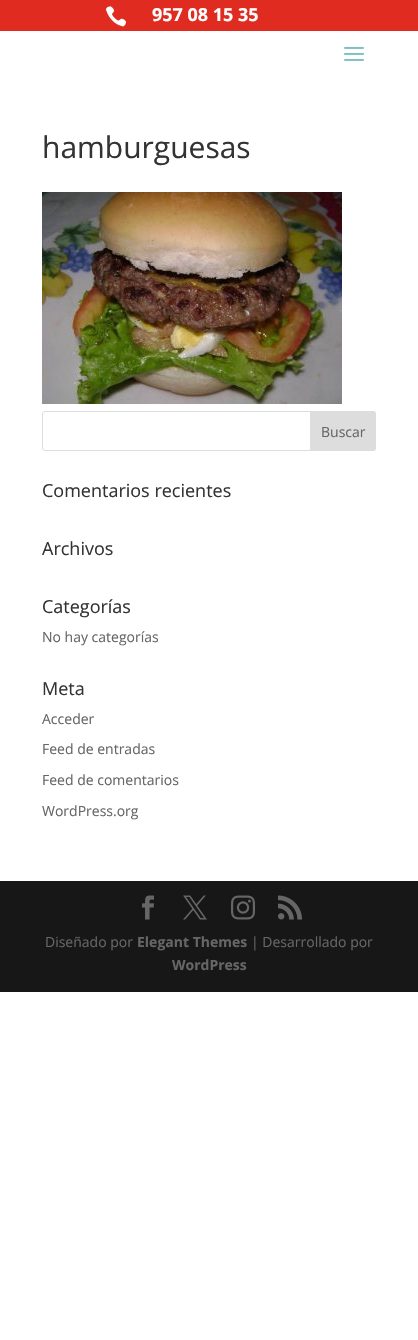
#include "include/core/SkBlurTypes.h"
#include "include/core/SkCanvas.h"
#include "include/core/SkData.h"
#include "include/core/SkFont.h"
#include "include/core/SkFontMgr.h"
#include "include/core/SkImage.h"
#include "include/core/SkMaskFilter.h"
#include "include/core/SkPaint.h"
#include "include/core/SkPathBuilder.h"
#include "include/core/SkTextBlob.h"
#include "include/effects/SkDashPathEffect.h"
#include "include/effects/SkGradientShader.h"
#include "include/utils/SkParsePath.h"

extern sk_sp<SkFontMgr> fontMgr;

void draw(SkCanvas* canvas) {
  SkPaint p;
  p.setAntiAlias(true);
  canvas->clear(SK_ColorWHITE);
  p.setColor(SkColorSetRGB(224, 43, 32));
  canvas->drawRect(SkRect::MakeLTRB(0, 0, 418, 31), p);
  canvas->drawImageRect(SkImages::DeferredFromEncodedData(SkData::MakeFromFileName("images/1.png")), SkRect::MakeLTRB(105, 6, 127, 27), SkSamplingOptions());
  canvas->drawImageRect(SkImages::DeferredFromEncodedData(SkData::MakeFromFileName("images/2.png")), SkRect::MakeLTRB(344, 46, 364, 61), SkSamplingOptions());
  canvas->drawImageRect(SkImages::DeferredFromEncodedData(SkData::MakeFromFileName("images/3.png")), SkRect::MakeLTRB(42, 192, 342, 404), SkSamplingOptions());
  p.setStyle(SkPaint::kStroke_Style);
  p.setStrokeWidth(1);
  p.setColor(SkColorSetRGB(221, 221, 221));
  canvas->drawRoundRect(SkRect::MakeLTRB(42.5f, 411.5f, 375.5f, 450.5f), 2.5f, 2.5f, p);
  p.setStyle(SkPaint::kFill_Style);
  canvas->drawPath(SkPathBuilder().moveTo(310.5f, 411.5f).lineTo(373, 411.5f).cubicTo(374.5f, 411.5f, 375.5f, 412.5f, 375.5f, 414).lineTo(375.5f, 448).cubicTo(375.5f, 449.5f, 374.5f, 450.5f, 373, 450.5f).lineTo(310.5f, 450.5f).close().detach(), p);
  p.setStyle(SkPaint::kStroke_Style);
  canvas->drawPath(SkPathBuilder().moveTo(310.5f, 411.5f).lineTo(373, 411.5f).cubicTo(374.5f, 411.5f, 375.5f, 412.5f, 375.5f, 414).lineTo(375.5f, 448).cubicTo(375.5f, 449.5f, 374.5f, 450.5f, 373, 450.5f).lineTo(310.5f, 450.5f).close().detach(), p);
  p.setStyle(SkPaint::kFill_Style);
  p.setColor(SkColorSetRGB(23, 23, 23));
  canvas->drawRect(SkRect::MakeLTRB(0, 881, 418, 992), p);
  canvas->drawImageRect(SkImages::DeferredFromEncodedData(SkData::MakeFromFileName("images/4.png")), SkRect::MakeLTRB(142, 895, 154, 920), SkSamplingOptions());
  canvas->drawImageRect(SkImages::DeferredFromEncodedData(SkData::MakeFromFileName("images/5.png")), SkRect::MakeLTRB(183, 895, 207, 920), SkSamplingOptions());
  canvas->drawImageRect(SkImages::DeferredFromEncodedData(SkData::MakeFromFileName("images/6.png")), SkRect::MakeLTRB(231, 895, 255, 920), SkSamplingOptions());
  canvas->drawImageRect(SkImages::DeferredFromEncodedData(SkData::MakeFromFileName("images/7.png")), SkRect::MakeLTRB(278, 895, 302, 920), SkSamplingOptions());
  SkFont font1(fontMgr->matchFamilyStyle("Open Sans", SkFontStyle::Bold()), 18);
  font1.setSubpixel(true);
  p.setColor(SK_ColorWHITE);
  canvas->drawString("957 08 15 35", 152, 21, font1, p);
  SkFont font2(fontMgr->matchFamilyStyle("Open Sans", SkFontStyle::Normal()), 30);
  font2.setSubpixel(true);
  p.setColor(SkColorSetRGB(51, 51, 51));
  canvas->drawString("hamburguesas", 42, 158, font2, p);
  SkFont font3(fontMgr->matchFamilyStyle("Open Sans", SkFontStyle::Normal()), 14);
  font3.setSubpixel(true);
  p.setColor(SkColorSetRGB(102, 102, 102));
  canvas->drawString("Buscar", 321, 437, font3, p);
  SkFont font4(fontMgr->matchFamilyStyle("Open Sans", SkFontStyle::Normal()), 18);
  font4.setSubpixel(true);
  p.setColor(SkColorSetRGB(51, 51, 51));
  canvas->drawString("Comentarios recientes", 42, 497, font4, p);
  canvas->drawString("Archivos", 42, 555, font4, p);
  canvas->drawString("Categorías", 42, 613, font4, p);
  p.setColor(SkColorSetRGB(102, 102, 102));
  canvas->drawString("No hay categorías", 42, 642, font3, p);
  p.setColor(SkColorSetRGB(51, 51, 51));
  canvas->drawString("Meta", 42, 695, font4, p);
  p.setColor(SkColorSetRGB(102, 102, 102));
  canvas->drawString("Acceder", 42, 724, font3, p);
  canvas->drawString("Feed de entradas", 42, 754, font3, p);
  canvas->drawString("Feed de comentarios", 42, 785, font3, p);
  canvas->drawString("WordPress.org", 42, 816, font3, p);
  canvas->drawString("Diseñado por", 45, 947, font3, p);
  SkFont font5(fontMgr->matchFamilyStyle("Open Sans", SkFontStyle::Bold()), 14);
  font5.setSubpixel(true);
  canvas->drawString("Elegant Themes", 137, 947, font5, p);
  canvas->drawString("| Desarrollado por", 251, 947, font3, p);
  canvas->drawString("WordPress", 172, 970, font5, p);
}
